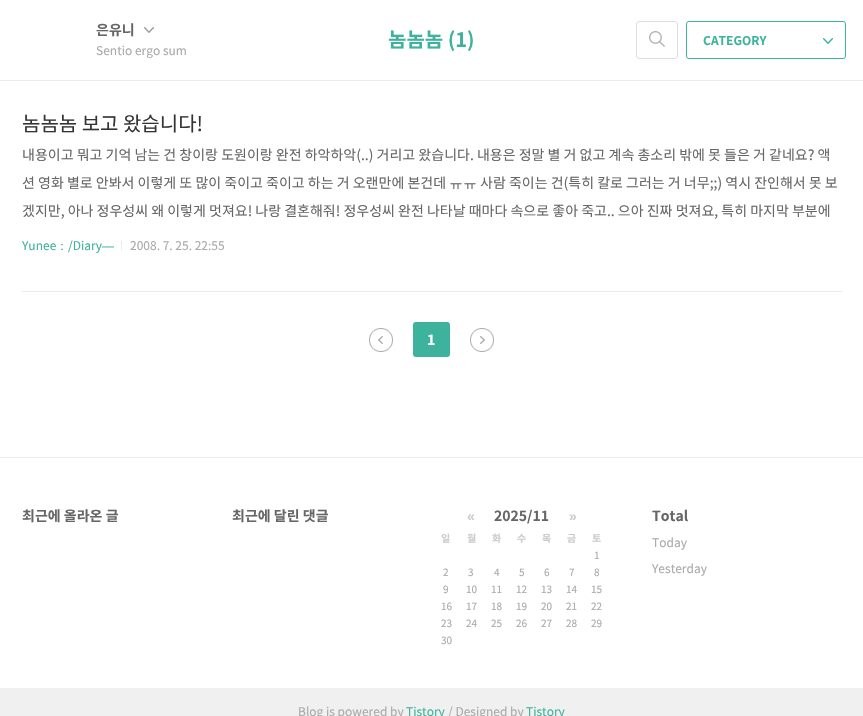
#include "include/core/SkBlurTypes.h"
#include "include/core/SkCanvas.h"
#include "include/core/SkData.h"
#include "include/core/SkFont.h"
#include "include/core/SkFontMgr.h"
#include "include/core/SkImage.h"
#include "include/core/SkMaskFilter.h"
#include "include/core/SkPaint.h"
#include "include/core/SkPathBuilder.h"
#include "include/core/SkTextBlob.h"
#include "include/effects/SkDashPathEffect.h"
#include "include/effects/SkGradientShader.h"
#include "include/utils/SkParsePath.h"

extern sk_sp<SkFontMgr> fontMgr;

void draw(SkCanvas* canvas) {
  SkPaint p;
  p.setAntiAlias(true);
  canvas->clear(SK_ColorWHITE);
  p.setColor(SkColorSetRGB(235, 235, 235));
  canvas->drawRect(SkRect::MakeLTRB(0, 80, 863, 81), p);
  canvas->drawImageRect(SkImages::DeferredFromEncodedData(SkData::MakeFromFileName("images/1.png")), SkRect::MakeLTRB(144, 27, 154, 33), SkSamplingOptions());
  p.setStyle(SkPaint::kStroke_Style);
  p.setStrokeWidth(1);
  p.setColor(SkColorSetRGB(221, 221, 221));
  canvas->drawRoundRect(SkRect::MakeLTRB(636.5f, 21.5f, 677.5f, 58.5f), 2.5f, 2.5f, p);
  canvas->drawImageRect(SkImages::DeferredFromEncodedData(SkData::MakeFromFileName("images/2.png")), SkRect::MakeLTRB(649, 31, 665, 47), SkSamplingOptions());
  p.setColor(SkColorSetRGB(61, 179, 158));
  canvas->drawRoundRect(SkRect::MakeLTRB(686.5f, 21.5f, 845.5f, 58.5f), 2.5f, 2.5f, p);
  canvas->drawImageRect(SkImages::DeferredFromEncodedData(SkData::MakeFromFileName("images/3.png")), SkRect::MakeLTRB(823, 38, 833, 44), SkSamplingOptions());
  p.setStyle(SkPaint::kFill_Style);
  p.setColor(SkColorSetRGB(235, 235, 235));
  canvas->drawRect(SkRect::MakeLTRB(22, 291, 842, 292), p);
  canvas->drawRect(SkRect::MakeLTRB(121, 241, 122, 250), p);
  canvas->drawImageRect(SkImages::DeferredFromEncodedData(SkData::MakeFromFileName("images/4.png")), SkRect::MakeLTRB(369, 328, 393, 352), SkSamplingOptions());
  p.setColor(SkColorSetRGB(61, 179, 158));
  canvas->drawRoundRect(SkRect::MakeLTRB(413, 322, 450, 357), 3, 3, p);
  canvas->drawImageRect(SkImages::DeferredFromEncodedData(SkData::MakeFromFileName("images/5.png")), SkRect::MakeLTRB(470, 328, 494, 352), SkSamplingOptions());
  p.setColor(SkColorSetRGB(235, 235, 235));
  canvas->drawRect(SkRect::MakeLTRB(0, 457, 863, 458), p);
  p.setColor(SkColorSetRGB(240, 240, 240));
  canvas->drawRect(SkRect::MakeLTRB(0, 688, 863, 716), p);
  SkFont font1(fontMgr->matchFamilyStyle("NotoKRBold", SkFontStyle::Bold()), 14);
  font1.setSubpixel(true);
  p.setColor(SkColorSetRGB(102, 102, 102));
  canvas->drawString("은유니", 96, 35, font1, p);
  SkFont font2(fontMgr->matchFamilyStyle("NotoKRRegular", SkFontStyle::Normal()), 12);
  font2.setSubpixel(true);
  p.setColor(SkColorSetRGB(170, 170, 170));
  canvas->drawString("Sentio ergo sum", 96, 55, font2, p);
  SkFont font3(fontMgr->matchFamilyStyle("NotoKRBold", SkFontStyle::Bold()), 20);
  font3.setSubpixel(true);
  p.setColor(SkColorSetRGB(61, 179, 158));
  canvas->drawString("놈놈놈 (1)", 388, 47, font3, p);
  SkFont font4(fontMgr->matchFamilyStyle("NotoKRBold", SkFontStyle::Bold()), 12);
  font4.setSubpixel(true);
  canvas->drawString("CATEGORY", 703, 45, font4, p);
  SkFont font5(fontMgr->matchFamilyStyle("NotoKRRegular", SkFontStyle::Normal()), 20);
  font5.setSubpixel(true);
  p.setColor(SkColorSetRGB(51, 51, 51));
  canvas->drawString("놈놈놈 보고 왔습니다!", 22, 131, font5, p);
  SkFont font6(fontMgr->matchFamilyStyle("NotoKRRegular", SkFontStyle::Normal()), 14);
  font6.setSubpixel(true);
  p.setColor(SkColorSetRGB(102, 102, 102));
  canvas->drawString("내용이고 뭐고 기억 남는 건 창이랑 도원이랑 완전 하악하악(..) 거리고 왔습니다. 내용은 정말 별 거 없고 계속 총소리 밖에 못 들은 거 같네요? 액", 22, 160, font6, p);
  canvas->drawString("션 영화 별로 안봐서 이렇게 또 많이 죽이고 죽이고 하는 거 오랜만에 본건데", 22, 188, font6, p);
  SkFont font7(fontMgr->matchFamilyStyle("WenQuanYi Zen Hei", SkFontStyle(500, SkFontStyle::kNormal_Width, SkFontStyle::kUpright_Slant)), 14);
  font7.setSubpixel(true);
  canvas->drawString("ㅠㅠ", 449, 188, font7, p);
  canvas->drawString("사람 죽이는 건(특히 칼로 그러는 거 너무;;) 역시 잔인해서 못 보", 480, 188, font6, p);
  canvas->drawString("겠지만, 아나 정우성씨 왜 이렇게 멋져요! 나랑 결혼해줘! 정우성씨 완전 나타날 때마다 속으로 좋아 죽고.. 으아 진짜 멋져요, 특히 마지막 부분에", 22, 216, font6, p);
  p.setColor(SkColorSetRGB(61, 179, 158));
  canvas->drawString("Yunee", 22, 250, font2, p);
  SkFont font8(fontMgr->matchFamilyStyle("WenQuanYi Zen Hei", SkFontStyle(500, SkFontStyle::kNormal_Width, SkFontStyle::kUpright_Slant)), 12);
  font8.setSubpixel(true);
  canvas->drawString("：", 56, 250, font8, p);
  canvas->drawString("/Diary", 68, 250, font2, p);
  SkFont font9(fontMgr->matchFamilyStyle("Liberation Sans", SkFontStyle::Normal()), 12);
  font9.setSubpixel(true);
  canvas->drawString("―", 102, 250, font9, p);
  p.setColor(SkColorSetRGB(170, 170, 170));
  canvas->drawString("2008. 7. 25. 22:55", 130, 250, font2, p);
  p.setColor(SK_ColorWHITE);
  canvas->drawString("1", 427, 345, font1, p);
  p.setColor(SkColorSetRGB(102, 102, 102));
  canvas->drawString("최근에 올라온 글", 22, 521, font1, p);
  canvas->drawString("최근에 달린 댓글", 232, 521, font1, p);
  SkFont font10(fontMgr->matchFamilyStyle("Liberation Sans", SkFontStyle::Bold()), 14);
  font10.setSubpixel(true);
  p.setColor(SkColorSetRGB(204, 204, 204));
  canvas->drawString("«", 467, 521, font10, p);
  p.setColor(SkColorSetRGB(102, 102, 102));
  canvas->drawString("2025/11", 494, 521, font1, p);
  p.setColor(SkColorSetRGB(204, 204, 204));
  canvas->drawString("»", 569, 521, font10, p);
  SkFont font11(fontMgr->matchFamilyStyle("NotoKRBold", SkFontStyle::Bold()), 10);
  font11.setSubpixel(true);
  canvas->drawString("일", 441, 542, font11, p);
  canvas->drawString("월", 467, 542, font11, p);
  canvas->drawString("화", 492, 542, font11, p);
  canvas->drawString("수", 517, 542, font11, p);
  canvas->drawString("목", 542, 542, font11, p);
  canvas->drawString("금", 567, 542, font11, p);
  canvas->drawString("토", 592, 542, font11, p);
  SkFont font12(fontMgr->matchFamilyStyle("NotoKRRegular", SkFontStyle::Normal()), 10);
  font12.setSubpixel(true);
  p.setColor(SkColorSetRGB(170, 170, 170));
  canvas->drawString("1", 594, 559, font12, p);
  canvas->drawString("2", 443, 576, font12, p);
  canvas->drawString("3", 468, 576, font12, p);
  canvas->drawString("4", 494, 576, font12, p);
  canvas->drawString("5", 519, 576, font12, p);
  canvas->drawString("6", 544, 576, font12, p);
  canvas->drawString("7", 569, 576, font12, p);
  canvas->drawString("8", 594, 576, font12, p);
  canvas->drawString("9", 443, 593, font12, p);
  canvas->drawString("10", 466, 593, font12, p);
  canvas->drawString("11", 491, 593, font12, p);
  canvas->drawString("12", 516, 593, font12, p);
  canvas->drawString("13", 541, 593, font12, p);
  canvas->drawString("14", 566, 593, font12, p);
  canvas->drawString("15", 591, 593, font12, p);
  canvas->drawString("16", 441, 610, font12, p);
  canvas->drawString("17", 466, 610, font12, p);
  canvas->drawString("18", 491, 610, font12, p);
  canvas->drawString("19", 516, 610, font12, p);
  canvas->drawString("20", 541, 610, font12, p);
  canvas->drawString("21", 566, 610, font12, p);
  canvas->drawString("22", 591, 610, font12, p);
  canvas->drawString("23", 441, 627, font12, p);
  canvas->drawString("24", 466, 627, font12, p);
  canvas->drawString("25", 491, 627, font12, p);
  canvas->drawString("26", 516, 627, font12, p);
  canvas->drawString("27", 541, 627, font12, p);
  canvas->drawString("28", 566, 627, font12, p);
  canvas->drawString("29", 591, 627, font12, p);
  canvas->drawString("30", 441, 644, font12, p);
  p.setColor(SkColorSetRGB(102, 102, 102));
  canvas->drawString("Total", 652, 521, font1, p);
  p.setColor(SkColorSetRGB(170, 170, 170));
  canvas->drawString("Today", 652, 547, font2, p);
  canvas->drawString("Yesterday", 652, 573, font2, p);
  canvas->drawString("Blog is powered by", 298, 716, font2, p);
  p.setColor(SkColorSetRGB(61, 179, 158));
  canvas->drawString("Tistory", 406, 716, font2, p);
  p.setColor(SkColorSetRGB(170, 170, 170));
  canvas->drawString("/ Designed by", 448, 716, font2, p);
  p.setColor(SkColorSetRGB(61, 179, 158));
  canvas->drawString("Tistory", 526, 716, font2, p);
}
